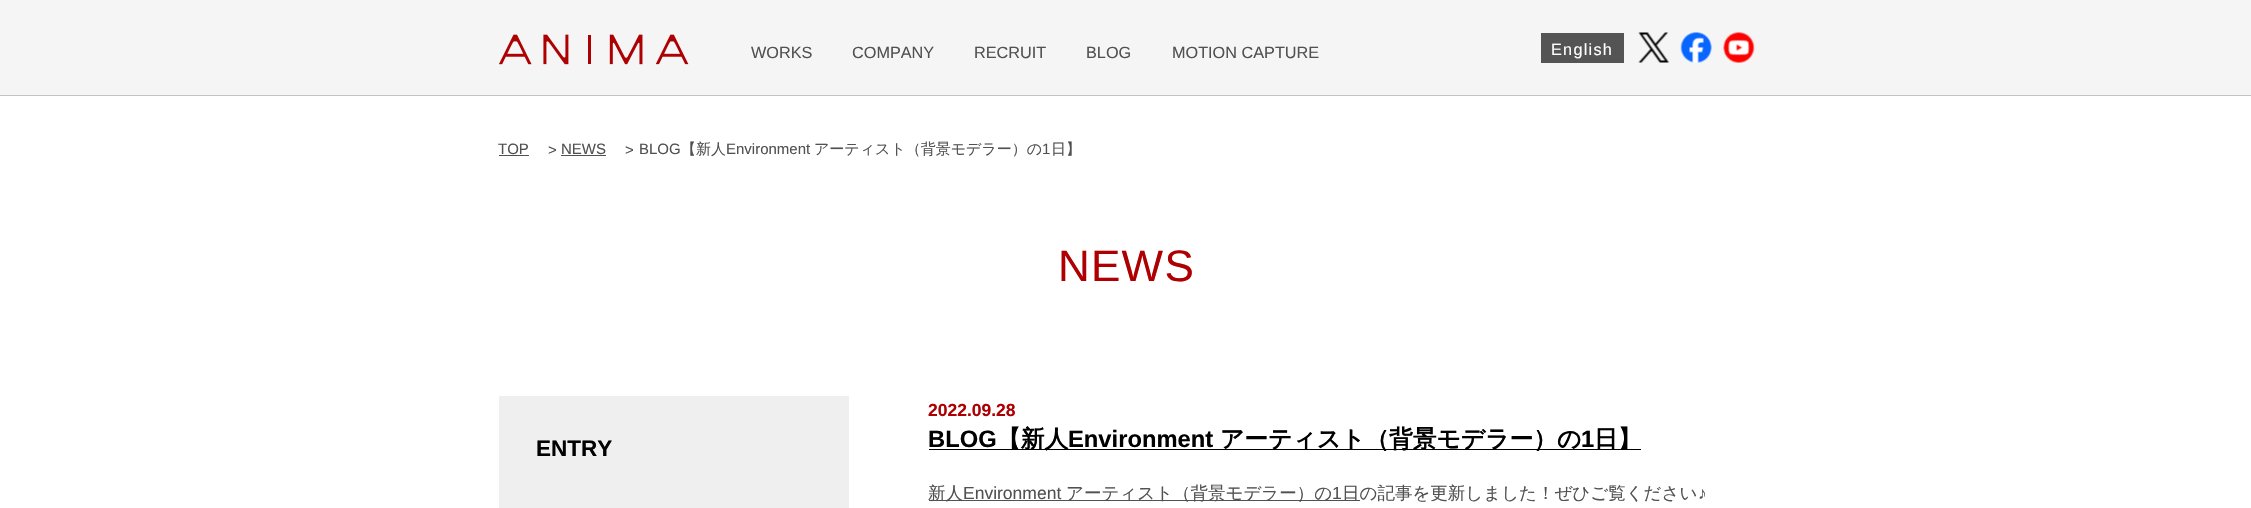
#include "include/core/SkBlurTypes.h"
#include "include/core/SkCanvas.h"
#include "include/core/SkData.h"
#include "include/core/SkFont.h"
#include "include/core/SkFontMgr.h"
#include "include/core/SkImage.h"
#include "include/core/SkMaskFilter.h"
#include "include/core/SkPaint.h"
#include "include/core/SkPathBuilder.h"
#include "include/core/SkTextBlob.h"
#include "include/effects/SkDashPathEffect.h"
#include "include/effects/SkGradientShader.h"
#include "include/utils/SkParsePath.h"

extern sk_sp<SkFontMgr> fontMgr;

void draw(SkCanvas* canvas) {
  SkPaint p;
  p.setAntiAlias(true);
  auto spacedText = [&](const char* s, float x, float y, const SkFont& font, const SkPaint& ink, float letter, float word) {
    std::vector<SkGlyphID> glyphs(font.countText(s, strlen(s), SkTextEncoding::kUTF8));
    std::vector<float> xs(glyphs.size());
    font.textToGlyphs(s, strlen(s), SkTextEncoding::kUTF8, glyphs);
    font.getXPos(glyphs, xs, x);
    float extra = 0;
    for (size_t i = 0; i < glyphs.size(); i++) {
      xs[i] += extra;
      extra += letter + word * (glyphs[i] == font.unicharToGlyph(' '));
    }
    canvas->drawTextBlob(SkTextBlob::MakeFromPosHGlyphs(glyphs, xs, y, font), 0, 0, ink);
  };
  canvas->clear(SK_ColorWHITE);
  p.setColor(SkColorSetRGB(245, 245, 245));
  canvas->drawRect(SkRect::MakeLTRB(0, 0, 2251, 95), p);
  p.setColor(SkColorSetRGB(195, 195, 195));
  canvas->drawRect(SkRect::MakeLTRB(0, 95, 2251, 96), p);
  canvas->drawImageRect(SkImages::DeferredFromEncodedData(SkData::MakeFromFileName("images/1.png")), SkRect::MakeLTRB(499, 34, 689, 65), SkSamplingOptions());
  p.setColor(SkColorSetRGB(84, 84, 84));
  canvas->drawRect(SkRect::MakeLTRB(1541, 33, 1624, 63), p);
  canvas->drawImageRect(SkImages::DeferredFromEncodedData(SkData::MakeFromFileName("images/2.png")), SkRect::MakeLTRB(1638, 32, 1670, 63), SkSamplingOptions());
  canvas->drawImageRect(SkImages::DeferredFromEncodedData(SkData::MakeFromFileName("images/3.png")), SkRect::MakeLTRB(1680, 32, 1712, 63), SkSamplingOptions());
  canvas->drawImageRect(SkImages::DeferredFromEncodedData(SkData::MakeFromFileName("images/4.png")), SkRect::MakeLTRB(1723, 32, 1755, 63), SkSamplingOptions());
  p.setColor(SkColorSetRGB(81, 81, 81));
  canvas->drawRect(SkRect::MakeLTRB(499, 155, 529, 156), p);
  canvas->drawRect(SkRect::MakeLTRB(561, 155, 606, 156), p);
  p.setColor(SkColorSetRGB(239, 239, 239));
  canvas->drawRect(SkRect::MakeLTRB(499, 396, 849, 508), p);
  p.setColor(SK_ColorBLACK);
  canvas->drawRect(SkRect::MakeLTRB(929, 449, 1641, 450), p);
  p.setColor(SkColorSetRGB(81, 81, 81));
  canvas->drawRect(SkRect::MakeLTRB(929, 500, 1360, 501), p);
  SkFont font1(fontMgr->matchFamilyStyle("Liberation Sans", SkFontStyle::Normal()), 16.25f);
  font1.setSubpixel(true);
  canvas->drawString("WORKS", 751, 58, font1, p);
  canvas->drawString("COMPANY", 852, 58, font1, p);
  canvas->drawString("RECRUIT", 974, 58, font1, p);
  canvas->drawString("BLOG", 1086, 58, font1, p);
  canvas->drawString("MOTION CAPTURE", 1172, 58, font1, p);
  p.setColor(SK_ColorWHITE);
  spacedText("English", 1551, 55, font1, p, 1.25f, 0);
  SkFont font2(fontMgr->matchFamilyStyle("Liberation Sans", SkFontStyle::Normal()), 15);
  font2.setSubpixel(true);
  p.setColor(SkColorSetRGB(81, 81, 81));
  canvas->drawString("TOP", 498, 154, font2, p);
  canvas->drawString(">", 548, 155, font2, p);
  canvas->drawString("NEWS", 561, 154, font2, p);
  canvas->drawString(">", 625, 155, font2, p);
  canvas->drawString("BLOG", 639, 154, font2, p);
  SkFont font3(fontMgr->matchFamilyStyle("WenQuanYi Zen Hei", SkFontStyle(500, SkFontStyle::kNormal_Width, SkFontStyle::kUpright_Slant)), 15);
  font3.setSubpixel(true);
  canvas->drawString("【新人", 681, 154, font3, p);
  canvas->drawString("Environment", 726, 154, font2, p);
  canvas->drawString("アーティスト（背景モデラー）の", 814, 154, font3, p);
  canvas->drawString("1", 1042, 154, font2, p);
  canvas->drawString("日】", 1051, 154, font3, p);
  SkFont font4(fontMgr->matchFamilyStyle("Liberation Sans", SkFontStyle::Normal()), 44);
  font4.setSubpixel(true);
  p.setColor(SkColorSetRGB(174, 0, 2));
  spacedText("NEWS", 1058, 281, font4, p, 1.25f, 0);
  SkFont font5(fontMgr->matchFamilyStyle("Liberation Sans", SkFontStyle::Bold()), 22.5f);
  font5.setSubpixel(true);
  p.setColor(SK_ColorBLACK);
  canvas->drawString("ENTRY", 536, 456, font5, p);
  SkFont font6(fontMgr->matchFamilyStyle("Liberation Sans", SkFontStyle::Bold()), 17.5f);
  font6.setSubpixel(true);
  p.setColor(SkColorSetRGB(174, 0, 2));
  canvas->drawString("2022.09.28", 928, 416, font6, p);
  SkFont font7(fontMgr->matchFamilyStyle("Liberation Sans", SkFontStyle::Bold()), 23.75f);
  font7.setSubpixel(true);
  p.setColor(SK_ColorBLACK);
  canvas->drawString("BLOG", 928, 447, font7, p);
  SkFont font8(fontMgr->matchFamilyStyle("WenQuanYi Zen Hei", SkFontStyle::Bold()), 23.75f);
  font8.setSubpixel(true);
  canvas->drawString("【新人", 997, 447, font8, p);
  canvas->drawString("Environment", 1068, 447, font7, p);
  canvas->drawString("アーティスト（背景モデラー）の", 1220, 447, font8, p);
  canvas->drawString("1", 1581, 447, font7, p);
  canvas->drawString("日】", 1594, 447, font8, p);
  SkFont font9(fontMgr->matchFamilyStyle("WenQuanYi Zen Hei", SkFontStyle(500, SkFontStyle::kNormal_Width, SkFontStyle::kUpright_Slant)), 17.5f);
  font9.setSubpixel(true);
  p.setColor(SkColorSetRGB(81, 81, 81));
  canvas->drawString("新人", 928, 499, font9, p);
  SkFont font10(fontMgr->matchFamilyStyle("Liberation Sans", SkFontStyle::Normal()), 17.5f);
  font10.setSubpixel(true);
  canvas->drawString("Environment", 963, 499, font10, p);
  canvas->drawString("アーティスト（背景モデラー）の", 1066, 499, font9, p);
  canvas->drawString("1", 1332, 499, font10, p);
  canvas->drawString("日の記事を更新しました！ぜひご覧ください", 1342, 499, font9, p);
  canvas->drawString("♪", 1698, 499, font10, p);
}
